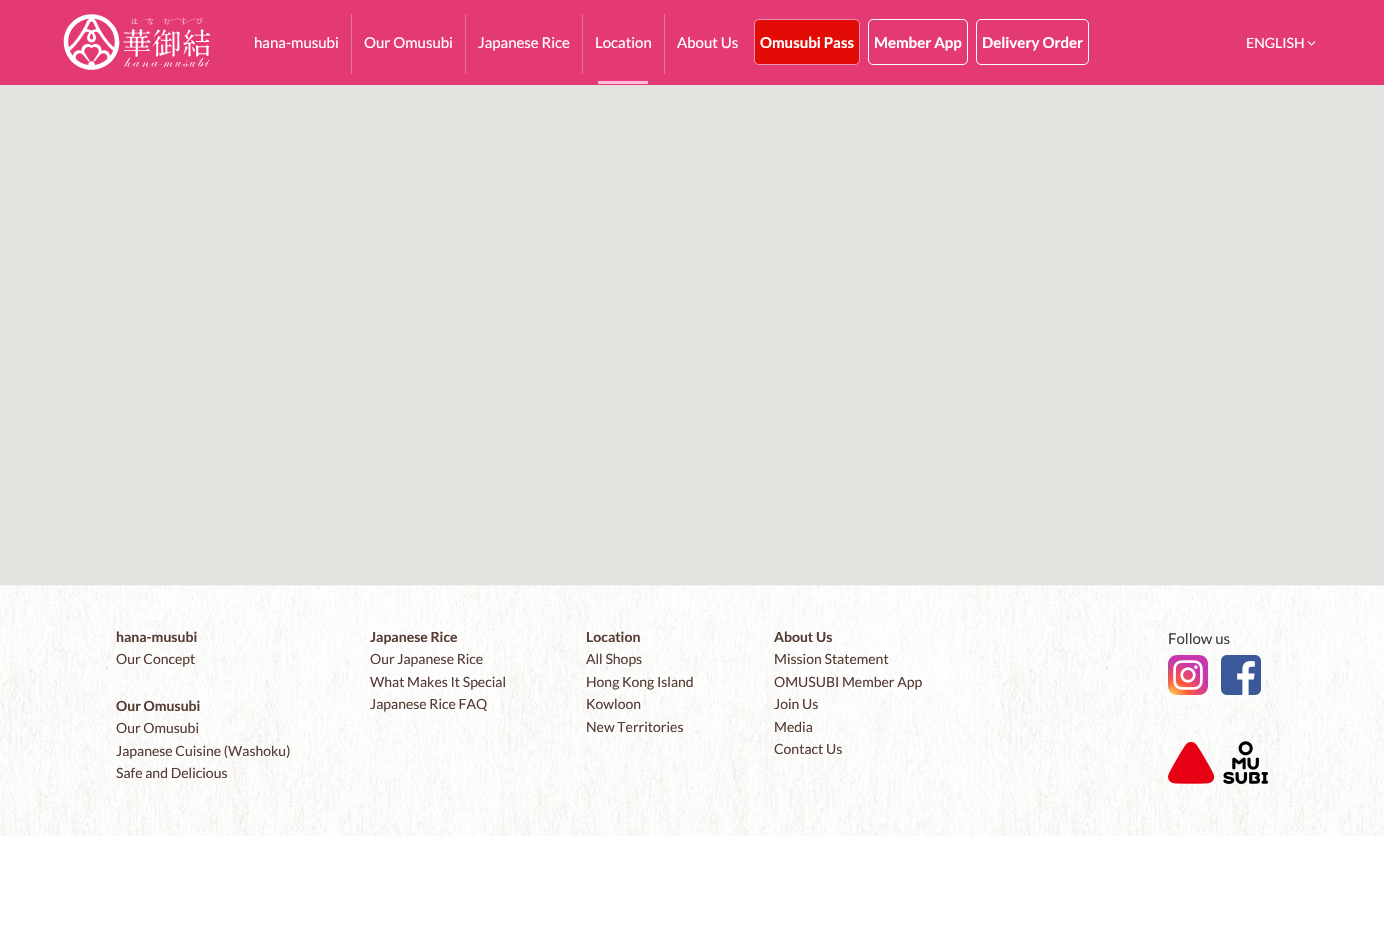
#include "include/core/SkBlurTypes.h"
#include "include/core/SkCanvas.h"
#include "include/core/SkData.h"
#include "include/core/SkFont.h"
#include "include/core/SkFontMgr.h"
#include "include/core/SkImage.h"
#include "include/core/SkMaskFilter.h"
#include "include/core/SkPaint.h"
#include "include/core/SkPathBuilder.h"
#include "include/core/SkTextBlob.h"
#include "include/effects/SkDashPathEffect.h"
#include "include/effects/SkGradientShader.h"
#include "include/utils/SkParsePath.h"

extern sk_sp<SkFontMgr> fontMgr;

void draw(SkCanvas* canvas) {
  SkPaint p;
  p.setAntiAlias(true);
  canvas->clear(SK_ColorWHITE);
  p.setColor(SkColorSetRGB(228, 58, 115));
  canvas->drawRect(SkRect::MakeLTRB(0, 0, 1384, 85), p);
  canvas->drawImageRect(SkImages::DeferredFromEncodedData(SkData::MakeFromFileName("images/1.png")), SkRect::MakeLTRB(63, 14, 211, 70), SkSamplingOptions());
  p.setColor(SkColorSetRGB(232, 115, 151));
  canvas->drawRect(SkRect::MakeLTRB(351, 14, 352, 74), p);
  canvas->drawRect(SkRect::MakeLTRB(465, 14, 466, 74), p);
  canvas->drawRect(SkRect::MakeLTRB(582, 14, 583, 74), p);
  p.setColor(SkColorSetRGB(255, 187, 221));
  canvas->drawRect(SkRect::MakeLTRB(598, 81, 648, 84), p);
  p.setColor(SkColorSetRGB(232, 115, 151));
  canvas->drawRect(SkRect::MakeLTRB(664, 14, 665, 74), p);
  p.setColor(SkColorSetRGB(226, 11, 6));
  canvas->drawRoundRect(SkRect::MakeLTRB(754.5f, 19.5f, 859.5f, 64.5f), 4.5f, 4.5f, p);
  p.setStyle(SkPaint::kStroke_Style);
  p.setStrokeWidth(1);
  p.setColor(SkColorSetRGB(240, 148, 179));
  canvas->drawRoundRect(SkRect::MakeLTRB(754.5f, 19.5f, 859.5f, 64.5f), 4.5f, 4.5f, p);
  p.setColor(SK_ColorWHITE);
  canvas->drawRoundRect(SkRect::MakeLTRB(868.5f, 19.5f, 967.5f, 64.5f), 4.5f, 4.5f, p);
  canvas->drawRoundRect(SkRect::MakeLTRB(976.5f, 19.5f, 1088.5f, 64.5f), 4.5f, 4.5f, p);
  canvas->drawImageRect(SkImages::DeferredFromEncodedData(SkData::MakeFromFileName("images/2.png")), SkRect::MakeLTRB(1307, 41, 1316, 46), SkSamplingOptions());
  p.setStyle(SkPaint::kFill_Style);
  p.setColor(SkColorSetRGB(229, 227, 223));
  canvas->drawRect(SkRect::MakeLTRB(0, 85, 1384, 585), p);
  p.setColor(SkColorSetRGB(241, 241, 241));
  canvas->drawRect(SkRect::MakeLTRB(0, 585, 1384, 586), p);
  canvas->drawImageRect(SkImages::DeferredFromEncodedData(SkData::MakeFromFileName("images/3.png")), SkRect::MakeLTRB(0, 586, 1384, 836), SkSamplingOptions());
  canvas->drawImageRect(SkImages::DeferredFromEncodedData(SkData::MakeFromFileName("images/4.png")), SkRect::MakeLTRB(1168, 655, 1208, 695), SkSamplingOptions());
  canvas->drawImageRect(SkImages::DeferredFromEncodedData(SkData::MakeFromFileName("images/5.png")), SkRect::MakeLTRB(1221, 655, 1261, 695), SkSamplingOptions());
  canvas->drawImageRect(SkImages::DeferredFromEncodedData(SkData::MakeFromFileName("images/6.png")), SkRect::MakeLTRB(1168, 741, 1268, 784), SkSamplingOptions());
  SkFont font1(fontMgr->matchFamilyStyle("Lato", SkFontStyle::Normal()), 15);
  font1.setSubpixel(true);
  p.setColor(SK_ColorWHITE);
  canvas->drawString("hana-musubi", 254, 48, font1, p);
  canvas->drawString("Our Omusubi", 364, 48, font1, p);
  canvas->drawString("Japanese Rice", 478, 48, font1, p);
  canvas->drawString("Location", 595, 48, font1, p);
  canvas->drawString("About Us", 677, 48, font1, p);
  SkFont font2(fontMgr->matchFamilyStyle("Lato", SkFontStyle::Bold()), 15);
  font2.setSubpixel(true);
  canvas->drawString("Omusubi Pass", 760, 48, font2, p);
  canvas->drawString("Member App", 874, 48, font2, p);
  canvas->drawString("Delivery Order", 982, 48, font2, p);
  SkFont font3(fontMgr->matchFamilyStyle("Lato", SkFontStyle::Normal()), 14);
  font3.setSubpixel(true);
  canvas->drawString("ENGLISH", 1246, 48, font3, p);
  SkFont font4(fontMgr->matchFamilyStyle("Lato", SkFontStyle::Bold()), 14);
  font4.setSubpixel(true);
  p.setColor(SkColorSetRGB(86, 60, 53));
  canvas->drawString("hana-musubi", 116, 642, font4, p);
  canvas->drawString("Our Concept", 116, 664, font3, p);
  canvas->drawString("Our Omusubi", 116, 711, font4, p);
  canvas->drawString("Our Omusubi", 116, 733, font3, p);
  canvas->drawString("Japanese Cuisine (Washoku)", 116, 756, font3, p);
  canvas->drawString("Safe and Delicious", 116, 778, font3, p);
  canvas->drawString("Japanese Rice", 370, 642, font4, p);
  canvas->drawString("Our Japanese Rice", 370, 664, font3, p);
  canvas->drawString("What Makes It Special", 370, 687, font3, p);
  canvas->drawString("Japanese Rice FAQ", 370, 709, font3, p);
  canvas->drawString("Location", 586, 642, font4, p);
  canvas->drawString("All Shops", 586, 664, font3, p);
  canvas->drawString("Hong Kong Island", 586, 687, font3, p);
  canvas->drawString("Kowloon", 586, 709, font3, p);
  canvas->drawString("New Territories", 586, 732, font3, p);
  canvas->drawString("About Us", 774, 642, font4, p);
  canvas->drawString("Mission Statement", 774, 664, font3, p);
  canvas->drawString("OMUSUBI Member App", 774, 687, font3, p);
  canvas->drawString("Join Us", 774, 709, font3, p);
  canvas->drawString("Media", 774, 732, font3, p);
  canvas->drawString("Contact Us", 774, 754, font3, p);
  p.setColor(SkColorSetRGB(65, 64, 66));
  canvas->drawString("Follow us", 1168, 644, font1, p);
}
